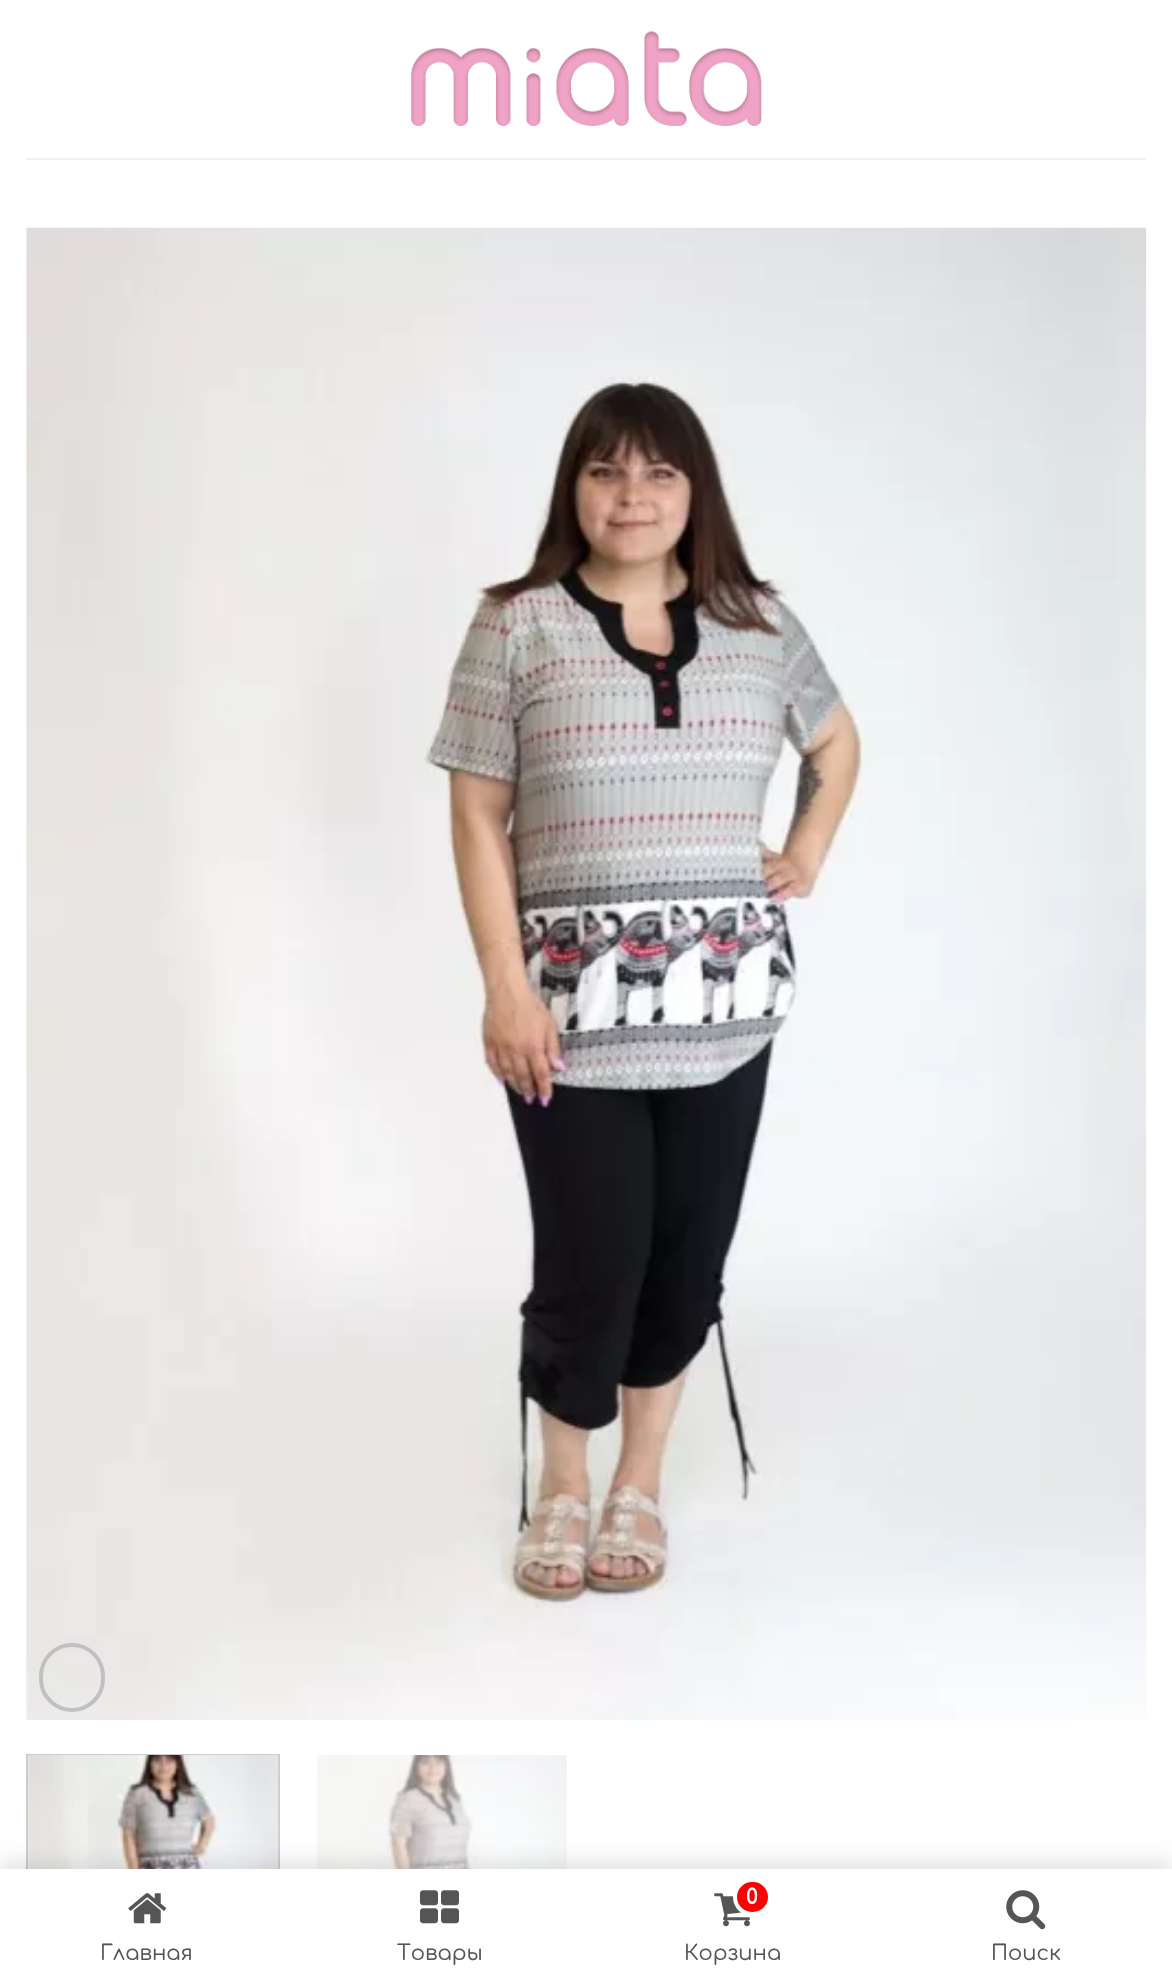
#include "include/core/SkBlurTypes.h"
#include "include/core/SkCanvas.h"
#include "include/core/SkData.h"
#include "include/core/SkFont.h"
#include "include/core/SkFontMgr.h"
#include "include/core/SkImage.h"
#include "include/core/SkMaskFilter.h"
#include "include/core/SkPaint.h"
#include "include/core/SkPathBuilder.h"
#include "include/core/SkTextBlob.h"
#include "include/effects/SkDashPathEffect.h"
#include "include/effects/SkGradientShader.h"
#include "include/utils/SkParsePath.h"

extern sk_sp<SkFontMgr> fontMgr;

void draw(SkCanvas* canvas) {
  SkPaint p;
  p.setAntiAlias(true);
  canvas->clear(SK_ColorWHITE);
  canvas->drawImageRect(SkImages::DeferredFromEncodedData(SkData::MakeFromFileName("images/1.png")), SkRect::MakeLTRB(411, 31, 762, 126), SkSamplingOptions());
  p.setColor(SkColorSetRGB(241, 241, 241));
  canvas->drawRect(SkRect::MakeLTRB(26, 158, 1146, 160), p);
  canvas->drawImageRect(SkImages::DeferredFromEncodedData(SkData::MakeFromFileName("images/2.png")), SkRect::MakeLTRB(26, 227, 1146, 1720), SkSamplingOptions());
  canvas->drawImageRect(SkImages::DeferredFromEncodedData(SkData::MakeFromFileName("images/3.png")), SkRect::MakeLTRB(1146, 228, 1147, 1720), SkSamplingOptions());
  p.setStyle(SkPaint::kStroke_Style);
  p.setStrokeWidth(4);
  p.setColor(SkColorSetRGB(192, 192, 192));
  canvas->drawRoundRect(SkRect::MakeLTRB(41, 1645, 103, 1710), 31, 31, p);
  p.setStrokeWidth(2);
  p.setColor(SkColorSetRGB(204, 204, 204));
  canvas->drawRect(SkRect::MakeLTRB(27, 1755, 279, 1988), p);
  canvas->drawImageRect(SkImages::DeferredFromEncodedData(SkData::MakeFromFileName("images/4.png")), SkRect::MakeLTRB(28, 1755, 279, 1869), SkSamplingOptions());
  canvas->drawImageRect(SkImages::DeferredFromEncodedData(SkData::MakeFromFileName("images/5.png")), SkRect::MakeLTRB(317, 1755, 567, 1869), SkSamplingOptions());
  p.setStyle(SkPaint::kFill_Style);
  p.setColor(SkColorSetARGB(26, 0, 0, 0));
  p.setMaskFilter(SkMaskFilter::MakeBlur(kNormal_SkBlurStyle, 9));
  canvas->drawRect(SkRect::MakeLTRB(0, 1860, 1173, 1979), p);
  p.setMaskFilter(nullptr);
  p.setColor(SK_ColorWHITE);
  canvas->drawRect(SkRect::MakeLTRB(0, 1869, 1172, 1987), p);
  canvas->drawImageRect(SkImages::DeferredFromEncodedData(SkData::MakeFromFileName("images/6.png")), SkRect::MakeLTRB(128, 1893, 167, 1924), SkSamplingOptions());
  canvas->drawImageRect(SkImages::DeferredFromEncodedData(SkData::MakeFromFileName("images/7.png")), SkRect::MakeLTRB(420, 1890, 459, 1924), SkSamplingOptions());
  canvas->drawImageRect(SkImages::DeferredFromEncodedData(SkData::MakeFromFileName("images/8.png")), SkRect::MakeLTRB(714, 1893, 750, 1927), SkSamplingOptions());
  p.setColor(SkColorSetRGB(255, 0, 0));
  canvas->drawRoundRect(SkRect::MakeLTRB(735, 1880, 770, 1914), 17, 17, p);
  p.setStyle(SkPaint::kStroke_Style);
  p.setStrokeWidth(4);
  p.setColor(SK_ColorWHITE);
  canvas->drawRoundRect(SkRect::MakeLTRB(735, 1880, 770, 1914), 17, 17, p);
  canvas->drawImageRect(SkImages::DeferredFromEncodedData(SkData::MakeFromFileName("images/9.png")), SkRect::MakeLTRB(1006, 1890, 1046, 1930), SkSamplingOptions());
  SkFont font1(fontMgr->matchFamilyStyle("Comfortaa", SkFontStyle::Normal()), 21);
  font1.setSubpixel(true);
  p.setStyle(SkPaint::kFill_Style);
  p.setColor(SkColorSetRGB(85, 85, 85));
  canvas->drawString("Главная", 100, 1960, font1, p);
  canvas->drawString("Товары", 397, 1960, font1, p);
  SkFont font2(fontMgr->matchFamilyStyle("Comfortaa", SkFontStyle::Bold()), 21);
  font2.setSubpixel(true);
  p.setColor(SK_ColorWHITE);
  canvas->drawString("0", 746, 1904, font2, p);
  p.setColor(SkColorSetRGB(85, 85, 85));
  canvas->drawString("Корзина", 684, 1960, font1, p);
  canvas->drawString("Поиск", 991, 1960, font1, p);
}
